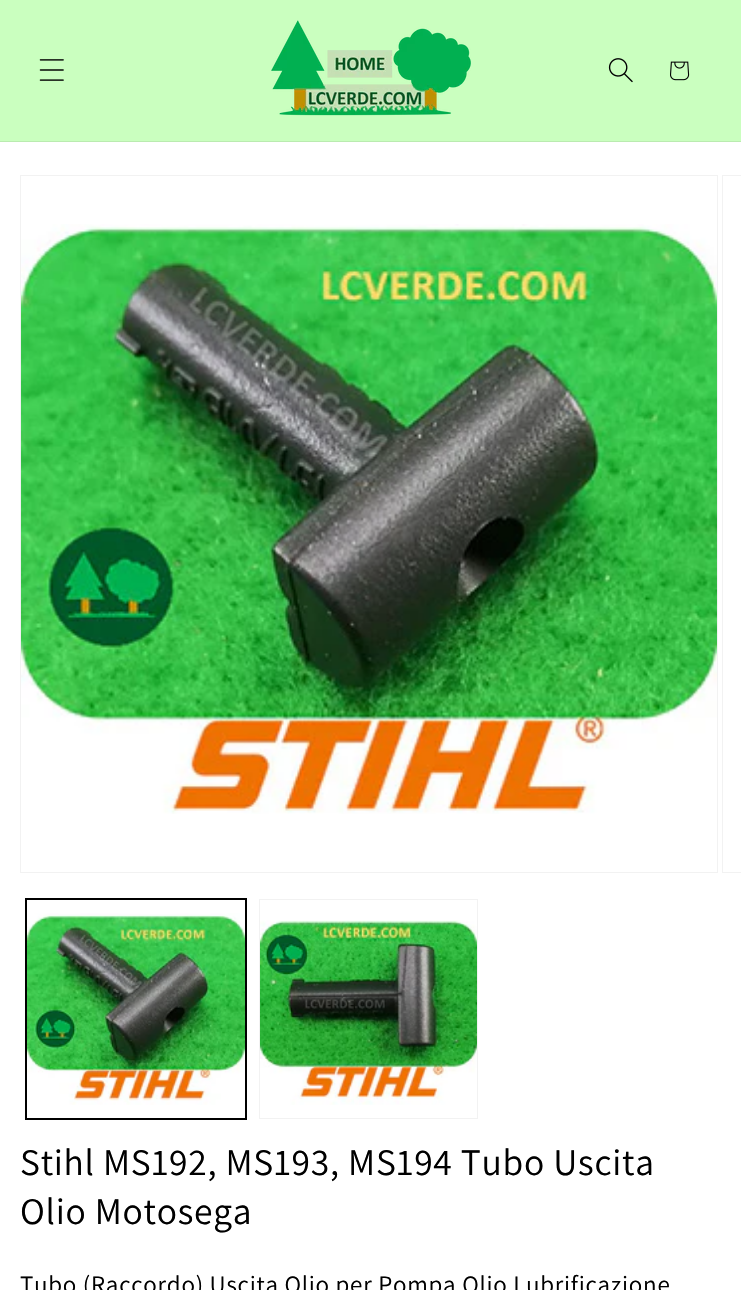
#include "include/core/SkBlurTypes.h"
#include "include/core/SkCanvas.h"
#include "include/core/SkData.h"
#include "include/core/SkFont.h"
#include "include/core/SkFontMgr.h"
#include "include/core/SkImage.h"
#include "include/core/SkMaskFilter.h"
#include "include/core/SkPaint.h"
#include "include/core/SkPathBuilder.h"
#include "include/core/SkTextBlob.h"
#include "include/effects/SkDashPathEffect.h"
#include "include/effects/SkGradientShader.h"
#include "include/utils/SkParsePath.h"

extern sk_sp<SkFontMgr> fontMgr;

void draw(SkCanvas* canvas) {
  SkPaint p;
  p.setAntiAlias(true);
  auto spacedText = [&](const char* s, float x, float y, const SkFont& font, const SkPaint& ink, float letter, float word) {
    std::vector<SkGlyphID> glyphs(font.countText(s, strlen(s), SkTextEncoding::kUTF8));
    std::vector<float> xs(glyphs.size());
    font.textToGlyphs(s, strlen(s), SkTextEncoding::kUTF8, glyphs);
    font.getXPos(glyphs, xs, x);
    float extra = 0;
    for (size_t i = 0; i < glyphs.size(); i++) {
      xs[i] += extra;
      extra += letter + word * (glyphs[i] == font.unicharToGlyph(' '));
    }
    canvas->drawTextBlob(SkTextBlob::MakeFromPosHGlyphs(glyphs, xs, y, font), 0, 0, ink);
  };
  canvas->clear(SK_ColorWHITE);
  p.setColor(SkColorSetRGB(202, 255, 191));
  canvas->drawRect(SkRect::MakeLTRB(0, 0, 741, 141), p);
  p.setColor(SkColorSetRGB(186, 235, 176));
  canvas->drawRect(SkRect::MakeLTRB(0, 141, 741, 142), p);
  canvas->drawImageRect(SkImages::DeferredFromEncodedData(SkData::MakeFromFileName("images/1.png")), SkRect::MakeLTRB(39, 59, 64, 81), SkSamplingOptions());
  canvas->drawImageRect(SkImages::DeferredFromEncodedData(SkData::MakeFromFileName("images/2.png")), SkRect::MakeLTRB(271, 20, 471, 116), SkSamplingOptions());
  canvas->drawImageRect(SkImages::DeferredFromEncodedData(SkData::MakeFromFileName("images/3.png")), SkRect::MakeLTRB(608, 58, 633, 83), SkSamplingOptions());
  canvas->drawImageRect(SkImages::DeferredFromEncodedData(SkData::MakeFromFileName("images/4.png")), SkRect::MakeLTRB(670, 61, 690, 81), SkSamplingOptions());
  p.setStyle(SkPaint::kStroke_Style);
  p.setStrokeWidth(1);
  p.setColor(SkColorSetRGB(242, 242, 242));
  canvas->drawRect(SkRect::MakeLTRB(20.5f, 175.5f, 717.5f, 872.5f), p);
  canvas->drawImageRect(SkImages::DeferredFromEncodedData(SkData::MakeFromFileName("images/5.png")), SkRect::MakeLTRB(21, 224, 717, 814), SkSamplingOptions());
  canvas->drawRect(SkRect::MakeLTRB(722.5f, 175.5f, 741.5f, 872.5f), p);
  p.setColor(SK_ColorBLACK);
  canvas->drawRect(SkRect::MakeLTRB(25.5f, 898.5f, 246.5f, 1119.5f), p);
  canvas->drawRect(SkRect::MakeLTRB(26.5f, 899.5f, 245.5f, 1118.5f), p);
  canvas->drawImageRect(SkImages::DeferredFromEncodedData(SkData::MakeFromFileName("images/6.png")), SkRect::MakeLTRB(27, 913, 245, 1105), SkSamplingOptions());
  p.setColor(SkColorSetRGB(242, 242, 242));
  canvas->drawRect(SkRect::MakeLTRB(259.5f, 899.5f, 477.5f, 1118.5f), p);
  canvas->drawImageRect(SkImages::DeferredFromEncodedData(SkData::MakeFromFileName("images/7.png")), SkRect::MakeLTRB(260, 920, 477, 1105), SkSamplingOptions());
  SkFont font1(fontMgr->matchFamilyStyle("Assistant", SkFontStyle::Normal()), 37.5f);
  font1.setSubpixel(true);
  p.setStyle(SkPaint::kFill_Style);
  p.setColor(SK_ColorBLACK);
  spacedText("Stihl MS192, MS193, MS194 Tubo Uscita", 20, 1175, font1, p, 0.75f, 0);
  spacedText("Olio Motosega", 20, 1224, font1, p, 0.75f, 0);
  SkFont font2(fontMgr->matchFamilyStyle("Assistant", SkFontStyle::Normal()), 25);
  font2.setSubpixel(true);
  spacedText("Tubo (Raccordo) Uscita Olio per Pompa Olio Lubrificazione", 20, 1293, font2, p, 0.75f, 0);
}
